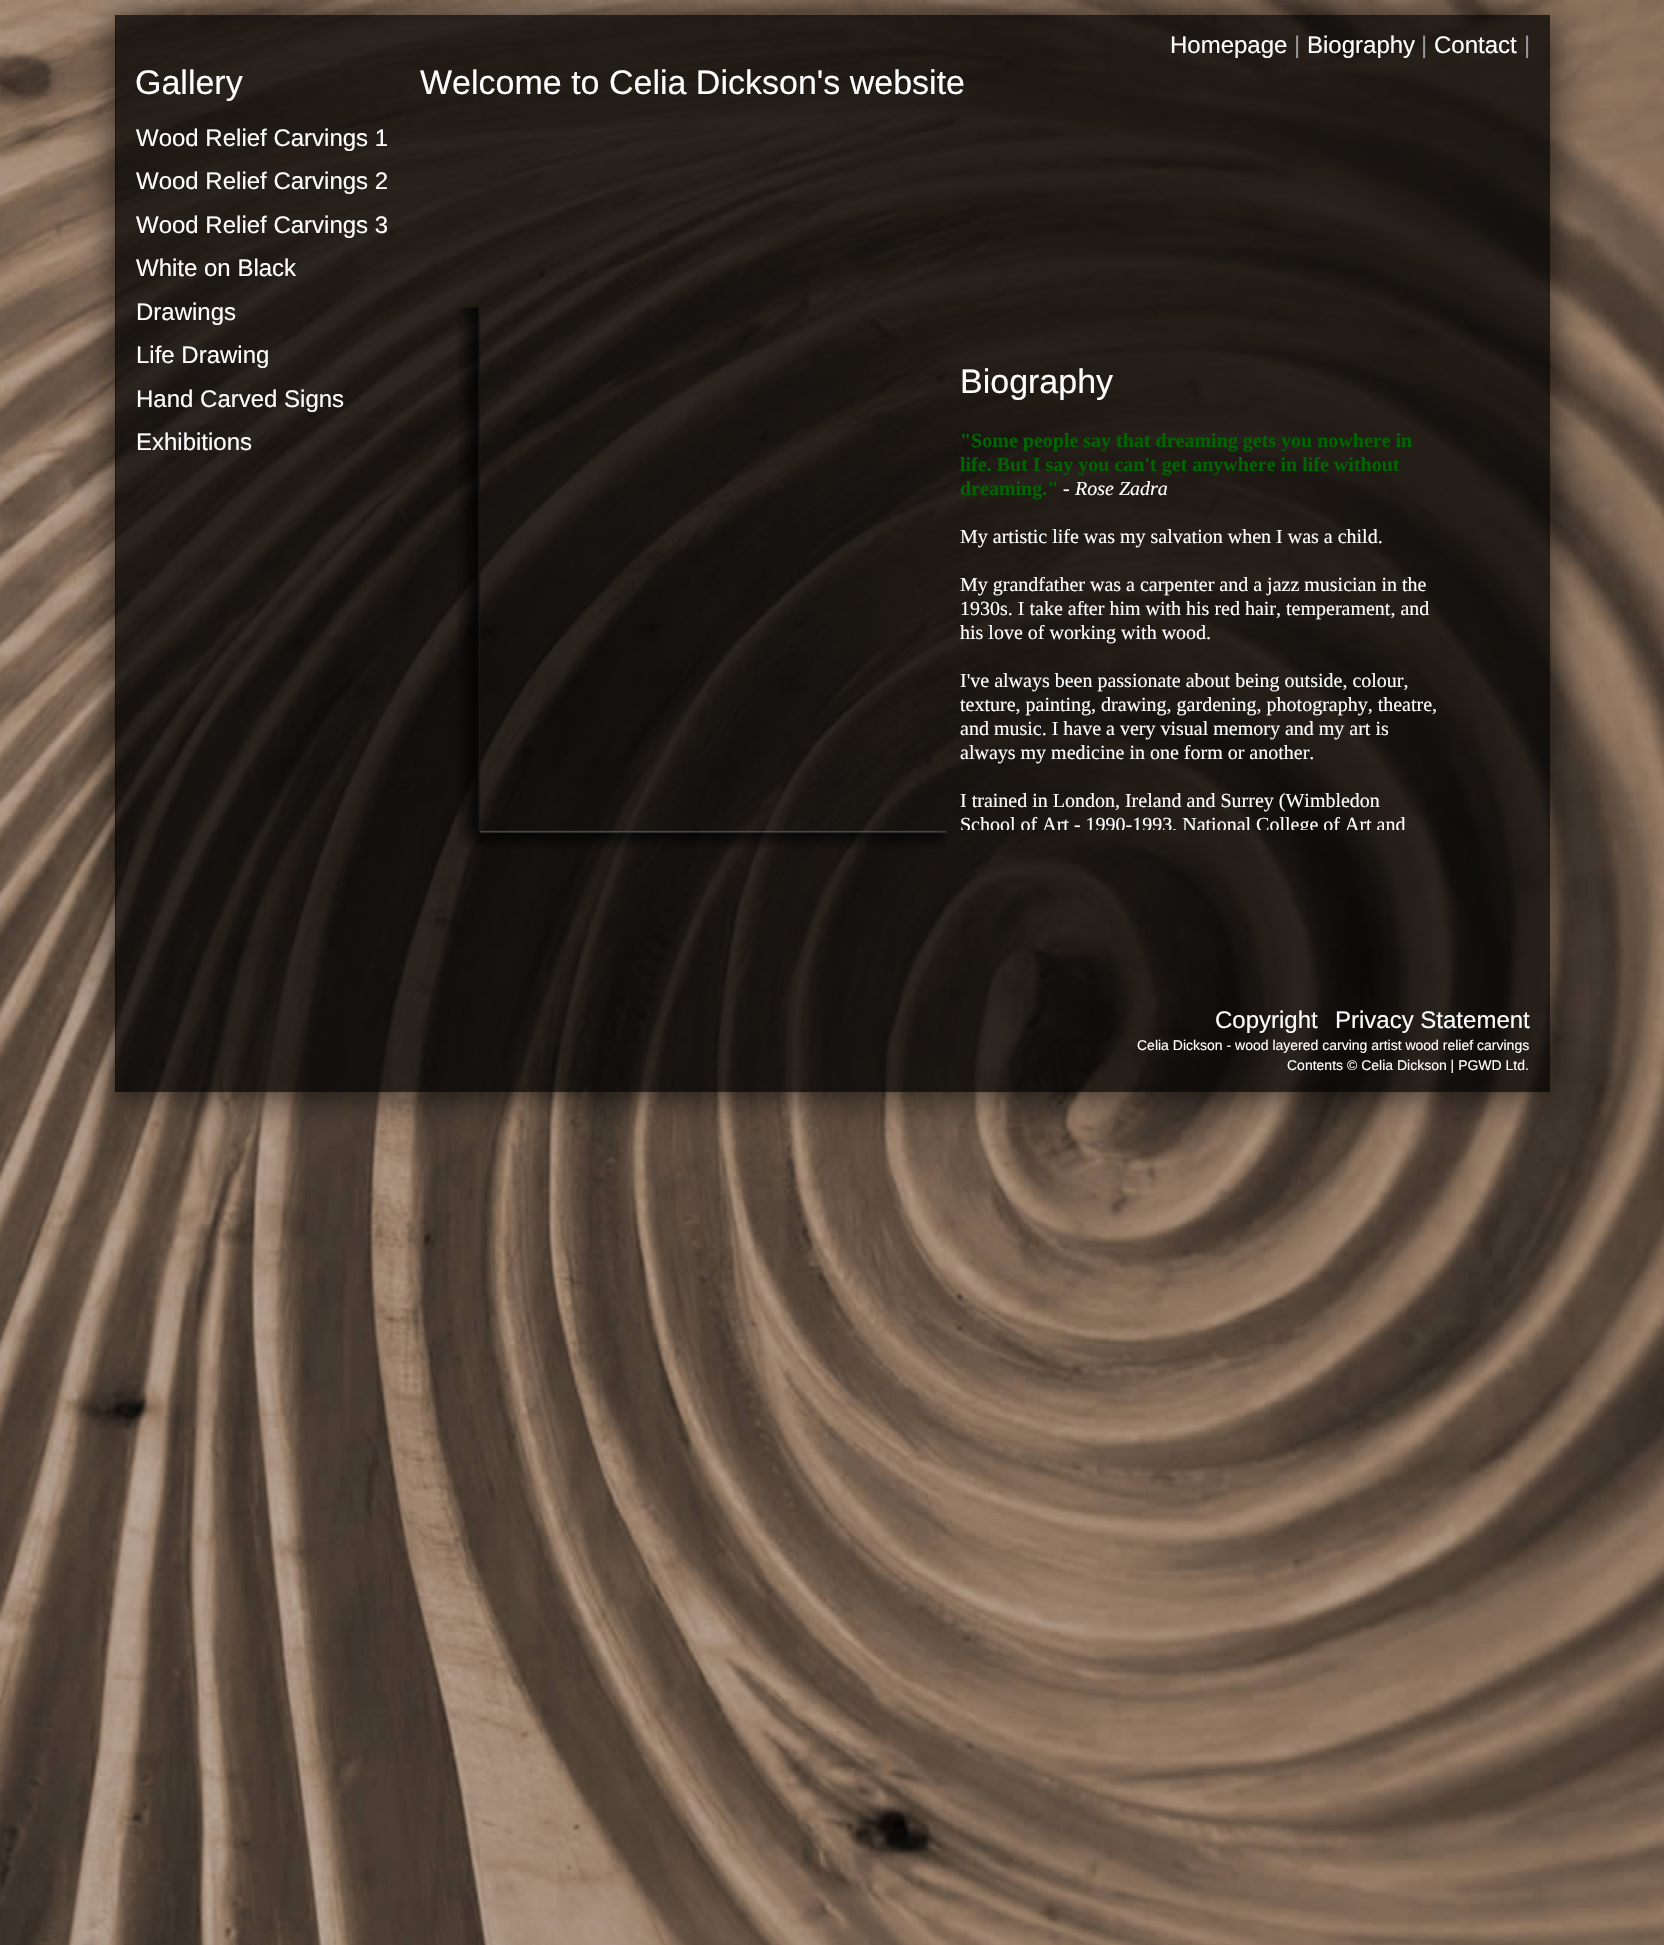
#include "include/core/SkBlurTypes.h"
#include "include/core/SkCanvas.h"
#include "include/core/SkData.h"
#include "include/core/SkFont.h"
#include "include/core/SkFontMgr.h"
#include "include/core/SkImage.h"
#include "include/core/SkMaskFilter.h"
#include "include/core/SkPaint.h"
#include "include/core/SkPathBuilder.h"
#include "include/core/SkTextBlob.h"
#include "include/effects/SkDashPathEffect.h"
#include "include/effects/SkGradientShader.h"
#include "include/utils/SkParsePath.h"

extern sk_sp<SkFontMgr> fontMgr;

void draw(SkCanvas* canvas) {
  SkPaint p;
  p.setAntiAlias(true);
  canvas->clear(SK_ColorWHITE);
  canvas->drawImageRect(SkImages::DeferredFromEncodedData(SkData::MakeFromFileName("images/1.png")), SkRect::MakeLTRB(0, 0, 1664, 1945), SkSamplingOptions());
  canvas->save();
  canvas->clipPath(SkPathBuilder(SkPathFillType::kEvenOdd).moveTo(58, 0).lineTo(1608, 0).lineTo(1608, 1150).lineTo(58, 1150).close().moveTo(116, 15).lineTo(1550, 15).lineTo(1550, 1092).lineTo(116, 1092).close().detach(), true);
  p.setColor(SkColorSetARGB(179, 0, 0, 0));
  p.setMaskFilter(SkMaskFilter::MakeBlur(kNormal_SkBlurStyle, 19));
  canvas->drawRect(SkRect::MakeLTRB(116, 15, 1550, 1092), p);
  p.setMaskFilter(nullptr);
  canvas->restore();
  p.setColor(SkColorSetARGB(191, 0, 0, 0));
  canvas->drawRect(SkRect::MakeLTRB(115, 15, 1550, 1092), p);
  canvas->drawImageRect(SkImages::DeferredFromEncodedData(SkData::MakeFromFileName("images/2.png")), SkRect::MakeLTRB(457, 307, 947, 849), SkSamplingOptions());
  SkFont font1(fontMgr->matchFamilyStyle("Liberation Sans", SkFontStyle::Normal()), 24);
  font1.setSubpixel(true);
  p.setColor(SK_ColorWHITE);
  canvas->drawString("Homepage", 1170, 53, font1, p);
  p.setColor(SkColorSetRGB(153, 153, 153));
  canvas->drawString("|", 1294, 53, font1, p);
  p.setColor(SK_ColorWHITE);
  canvas->drawString("Biography", 1307, 53, font1, p);
  p.setColor(SkColorSetRGB(153, 153, 153));
  canvas->drawString("|", 1421, 53, font1, p);
  p.setColor(SK_ColorWHITE);
  canvas->drawString("Contact", 1434, 53, font1, p);
  p.setColor(SkColorSetRGB(153, 153, 153));
  canvas->drawString("|", 1524, 53, font1, p);
  SkFont font2(fontMgr->matchFamilyStyle("Liberation Sans", SkFontStyle::Normal()), 34);
  font2.setSubpixel(true);
  p.setColor(SK_ColorWHITE);
  canvas->drawString("Gallery", 135, 94, font2, p);
  canvas->drawString("Welcome to Celia Dickson's website", 420, 94, font2, p);
  canvas->drawString("Wood Relief Carvings 1", 136, 146, font1, p);
  canvas->drawString("Wood Relief Carvings 2", 136, 189, font1, p);
  canvas->drawString("Wood Relief Carvings 3", 136, 233, font1, p);
  canvas->drawString("White on Black", 136, 276, font1, p);
  canvas->drawString("Drawings", 136, 320, font1, p);
  canvas->drawString("Life Drawing", 136, 363, font1, p);
  canvas->drawString("Hand Carved Signs", 136, 407, font1, p);
  canvas->drawString("Exhibitions", 136, 450, font1, p);
  canvas->drawString("Biography", 960, 393, font2, p);
  SkFont font3(fontMgr->matchFamilyStyle("Liberation Serif", SkFontStyle::Bold()), 20);
  font3.setSubpixel(true);
  p.setColor(SkColorSetRGB(0, 100, 0));
  canvas->drawString("\"Some people say that dreaming gets you nowhere in", 960, 447, font3, p);
  canvas->drawString("life. But I say you can't get anywhere in life without", 960, 471, font3, p);
  canvas->drawString("dreaming.\"", 960, 495, font3, p);
  SkFont font4(fontMgr->matchFamilyStyle("Liberation Serif", SkFontStyle::Normal()), 20);
  font4.setSubpixel(true);
  p.setColor(SK_ColorWHITE);
  canvas->drawString("-", 1063, 495, font4, p);
  SkFont font5(fontMgr->matchFamilyStyle("Liberation Serif", SkFontStyle::Italic()), 20);
  font5.setSubpixel(true);
  canvas->drawString("Rose Zadra", 1075, 495, font5, p);
  canvas->drawString("My artistic life was my salvation when I was a child.", 960, 543, font4, p);
  canvas->drawString("My grandfather was a carpenter and a jazz musician in the", 960, 591, font4, p);
  canvas->drawString("1930s. I take after him with his red hair, temperament, and", 960, 615, font4, p);
  canvas->drawString("his love of working with wood.", 960, 639, font4, p);
  canvas->drawString("I've always been passionate about being outside, colour,", 960, 687, font4, p);
  canvas->drawString("texture, painting, drawing, gardening, photography, theatre,", 960, 711, font4, p);
  canvas->drawString("and music. I have a very visual memory and my art is", 960, 735, font4, p);
  canvas->drawString("always my medicine in one form or another.", 960, 759, font4, p);
  canvas->drawString("I trained in London, Ireland and Surrey (Wimbledon", 960, 807, font4, p);
  canvas->save();
  canvas->clipRect(SkRect::MakeLTRB(960, 402, 1440, 830));
  canvas->drawString("School of Art - 1990-1993, National College of Art and", 960, 831, font4, p);
  canvas->restore();
  canvas->drawString("Copyright", 1215, 1028, font1, p);
  canvas->drawString("Privacy Statement", 1335, 1028, font1, p);
  SkFont font6(fontMgr->matchFamilyStyle("Liberation Sans", SkFontStyle::Normal()), 14);
  font6.setSubpixel(true);
  canvas->drawString("Celia Dickson - wood layered carving artist wood relief carvings", 1137, 1050, font6, p);
  canvas->drawString("Contents © Celia Dickson | PGWD Ltd.", 1287, 1070, font6, p);
}
